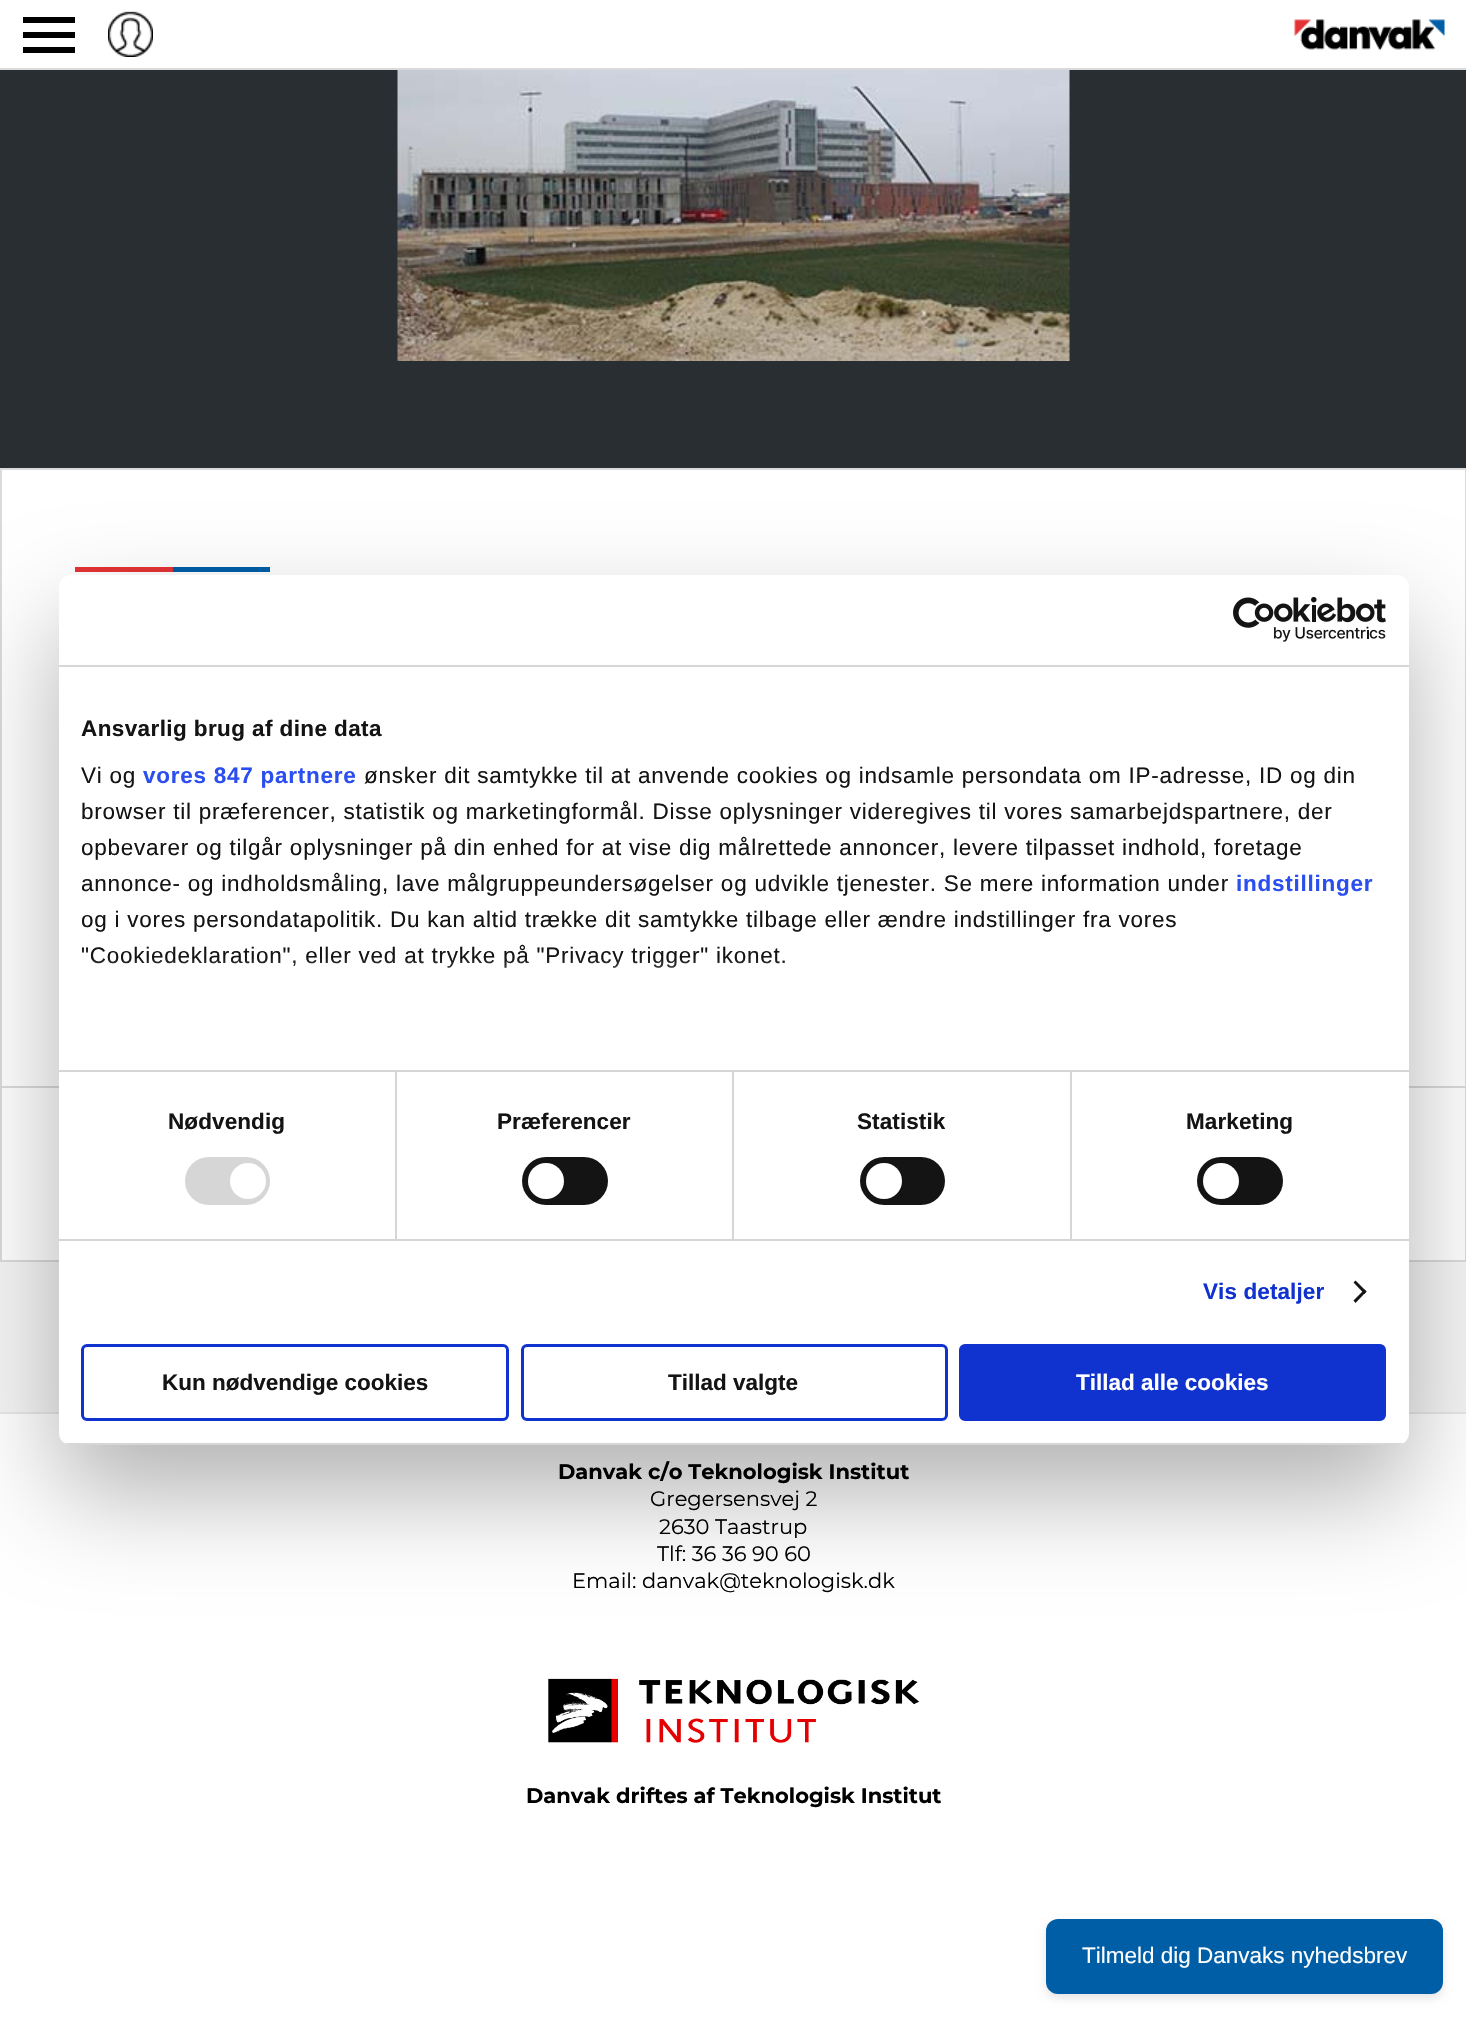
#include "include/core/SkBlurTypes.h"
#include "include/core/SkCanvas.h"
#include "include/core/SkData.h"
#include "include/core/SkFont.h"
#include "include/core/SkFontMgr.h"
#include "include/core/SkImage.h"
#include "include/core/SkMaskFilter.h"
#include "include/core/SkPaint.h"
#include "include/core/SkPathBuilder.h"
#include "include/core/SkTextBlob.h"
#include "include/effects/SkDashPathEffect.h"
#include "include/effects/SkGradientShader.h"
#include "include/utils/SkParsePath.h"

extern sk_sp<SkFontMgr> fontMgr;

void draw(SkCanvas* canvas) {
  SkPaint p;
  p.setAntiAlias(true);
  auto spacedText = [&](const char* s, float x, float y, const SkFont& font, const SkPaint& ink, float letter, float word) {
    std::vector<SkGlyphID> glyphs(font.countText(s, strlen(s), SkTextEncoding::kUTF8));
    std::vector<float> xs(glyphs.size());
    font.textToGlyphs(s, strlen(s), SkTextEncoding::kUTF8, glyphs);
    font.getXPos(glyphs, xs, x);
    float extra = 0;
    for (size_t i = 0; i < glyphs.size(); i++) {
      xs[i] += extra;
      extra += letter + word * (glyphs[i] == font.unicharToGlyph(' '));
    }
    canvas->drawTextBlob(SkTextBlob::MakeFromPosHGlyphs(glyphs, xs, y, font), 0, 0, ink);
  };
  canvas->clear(SK_ColorWHITE);
  p.setColor(SkColorSetRGB(218, 218, 218));
  canvas->drawRect(SkRect::MakeLTRB(0, 68, 1466, 70), p);
  p.setColor(SK_ColorBLACK);
  canvas->drawRect(SkRect::MakeLTRB(23, 17, 75, 23), p);
  canvas->drawRect(SkRect::MakeLTRB(23, 32, 75, 38), p);
  canvas->drawRect(SkRect::MakeLTRB(23, 47, 75, 53), p);
  canvas->drawImageRect(SkImages::DeferredFromEncodedData(SkData::MakeFromFileName("images/1.png")), SkRect::MakeLTRB(108, 11, 153, 57), SkSamplingOptions());
  canvas->drawImageRect(SkImages::DeferredFromEncodedData(SkData::MakeFromFileName("images/2.png")), SkRect::MakeLTRB(1294, 19, 1445, 50), SkSamplingOptions());
  p.setColor(SkColorSetRGB(40, 46, 50));
  canvas->drawRect(SkRect::MakeLTRB(0, 70, 1466, 468), p);
  canvas->drawImageRect(SkImages::DeferredFromEncodedData(SkData::MakeFromFileName("images/3.png")), SkRect::MakeLTRB(397, 70, 1070, 361), SkSamplingOptions());
  p.setColor(SkColorSetRGB(245, 245, 245));
  canvas->drawRect(SkRect::MakeLTRB(0, 1262, 1466, 1412), p);
  p.setStyle(SkPaint::kStroke_Style);
  p.setStrokeWidth(2);
  p.setColor(SkColorSetRGB(218, 218, 218));
  canvas->drawRect(SkRect::MakeLTRB(1, 469, 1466, 1261), p);
  p.setStyle(SkPaint::kFill_Style);
  p.setColor(SkColorSetRGB(228, 51, 52));
  canvas->drawRect(SkRect::MakeLTRB(75, 567, 173, 572), p);
  p.setColor(SkColorSetRGB(0, 94, 167));
  canvas->drawRect(SkRect::MakeLTRB(173, 567, 270, 572), p);
  p.setColor(SkColorSetRGB(218, 218, 218));
  canvas->drawRect(SkRect::MakeLTRB(2, 1086, 1466, 1088), p);
  p.setColor(SkColorSetRGB(232, 232, 232));
  canvas->drawRect(SkRect::MakeLTRB(0, 1412, 1466, 1414), p);
  p.setColor(SkColorSetARGB(77, 0, 0, 0));
  p.setMaskFilter(SkMaskFilter::MakeBlur(kNormal_SkBlurStyle, 51));
  canvas->drawRoundRect(SkRect::MakeLTRB(59, 623, 1409, 1493), 12, 12, p);
  p.setMaskFilter(nullptr);
  p.setColor(SK_ColorWHITE);
  canvas->drawRoundRect(SkRect::MakeLTRB(59, 575, 1409, 1445), 12, 12, p);
  p.setColor(SkColorSetRGB(214, 214, 214));
  canvas->drawRect(SkRect::MakeLTRB(59, 665, 1409, 667), p);
  canvas->drawImageRect(SkImages::DeferredFromEncodedData(SkData::MakeFromFileName("images/4.png")), SkRect::MakeLTRB(1233, 597, 1386, 642), SkSamplingOptions());
  canvas->drawRect(SkRect::MakeLTRB(395, 1071, 397, 1239), p);
  canvas->drawRect(SkRect::MakeLTRB(732, 1071, 734, 1239), p);
  canvas->drawRect(SkRect::MakeLTRB(1070, 1071, 1072, 1239), p);
  canvas->drawRect(SkRect::MakeLTRB(59, 1070, 1409, 1072), p);
  canvas->drawRect(SkRect::MakeLTRB(59, 1239, 1409, 1241), p);
  canvas->drawRoundRect(SkRect::MakeLTRB(185, 1157, 270, 1205), 24, 24, p);
  p.setColor(SK_ColorWHITE);
  canvas->drawCircle(248, 1181, 18, p);
  p.setColor(SkColorSetRGB(20, 20, 20));
  canvas->drawRoundRect(SkRect::MakeLTRB(522, 1157, 608, 1205), 24, 24, p);
  p.setColor(SK_ColorWHITE);
  canvas->drawCircle(546, 1181, 18, p);
  p.setColor(SkColorSetRGB(20, 20, 20));
  canvas->drawRoundRect(SkRect::MakeLTRB(860, 1157, 945, 1205), 24, 24, p);
  p.setColor(SK_ColorWHITE);
  canvas->drawCircle(884, 1181, 18, p);
  p.setColor(SkColorSetRGB(20, 20, 20));
  canvas->drawRoundRect(SkRect::MakeLTRB(1197, 1157, 1283, 1205), 24, 24, p);
  p.setColor(SK_ColorWHITE);
  canvas->drawCircle(1221, 1181, 18, p);
  p.setColor(SkColorSetRGB(20, 20, 20));
  canvas->drawPath(SkPathBuilder().moveTo(1355.5f, 1280.5f).lineTo(1366.5f, 1291.5f).lineTo(1364.5f, 1294).lineTo(1353.5f, 1282.5f).close().detach(), p);
  canvas->drawPath(SkPathBuilder().moveTo(1364.5f, 1289.5f).lineTo(1366.5f, 1291.5f).lineTo(1355.5f, 1303).lineTo(1353.5f, 1300.5f).close().detach(), p);
  canvas->save();
  canvas->clipPath(SkPathBuilder().moveTo(71, 575).lineTo(1397, 575).cubicTo(1403.5f, 575, 1409, 580.5f, 1409, 587).lineTo(1409, 1433).cubicTo(1409, 1439.5f, 1403.5f, 1445, 1397, 1445).lineTo(71, 1445).cubicTo(64.5f, 1445, 59, 1439.5f, 59, 1433).lineTo(59, 587).cubicTo(59, 580.5f, 64.5f, 575, 71, 575).close().detach(), true);
  p.setColor(SkColorSetRGB(214, 214, 214));
  canvas->drawRect(SkRect::MakeLTRB(59, 1443, 1409, 1445), p);
  canvas->restore();
  p.setStyle(SkPaint::kStroke_Style);
  p.setStrokeWidth(3);
  p.setColor(SkColorSetRGB(16, 50, 207));
  canvas->drawRoundRect(SkRect::MakeLTRB(82.5f, 1345.5f, 507.5f, 1419.5f), 4.5f, 4.5f, p);
  canvas->drawRoundRect(SkRect::MakeLTRB(522.5f, 1345.5f, 946.5f, 1419.5f), 4.5f, 4.5f, p);
  p.setStyle(SkPaint::kFill_Style);
  canvas->drawRoundRect(SkRect::MakeLTRB(960.5f, 1345.5f, 1384.5f, 1419.5f), 4.5f, 4.5f, p);
  p.setStyle(SkPaint::kStroke_Style);
  canvas->drawRoundRect(SkRect::MakeLTRB(960.5f, 1345.5f, 1384.5f, 1419.5f), 4.5f, 4.5f, p);
  canvas->drawImageRect(SkImages::DeferredFromEncodedData(SkData::MakeFromFileName("images/5.png")), SkRect::MakeLTRB(548, 1678, 920, 1743), SkSamplingOptions());
  p.setStyle(SkPaint::kFill_Style);
  p.setColor(SkColorSetARGB(26, 0, 0, 0));
  p.setMaskFilter(SkMaskFilter::MakeBlur(kNormal_SkBlurStyle, 4.5f));
  canvas->drawRoundRect(SkRect::MakeLTRB(1046, 1923, 1443, 1998), 12, 12, p);
  p.setMaskFilter(nullptr);
  p.setColor(SkColorSetRGB(0, 94, 167));
  canvas->drawRoundRect(SkRect::MakeLTRB(1046, 1919, 1443, 1994), 12, 12, p);
  SkFont font1(fontMgr->matchFamilyStyle("Liberation Sans", SkFontStyle::Bold()), 22.5f);
  font1.setSubpixel(true);
  p.setColor(SkColorSetRGB(20, 20, 20));
  spacedText("Ansvarlig brug af dine data", 81, 736, font1, p, 0.4f, 0);
  SkFont font2(fontMgr->matchFamilyStyle("Liberation Sans", SkFontStyle::Normal()), 22.5f);
  font2.setSubpixel(true);
  spacedText("Vi og", 81, 783, font2, p, 0.75f, 0);
  p.setColor(SkColorSetRGB(42, 78, 239));
  spacedText("vores 847 partnere", 143, 783, font1, p, 0.75f, 0);
  p.setColor(SkColorSetRGB(20, 20, 20));
  spacedText("ønsker dit samtykke til at anvende cookies og indsamle persondata om IP-adresse, ID og din", 364, 783, font2, p, 0.75f, 0);
  spacedText("browser til præferencer, statistik og marketingformål. Disse oplysninger videregives til vores samarbejdspartnere, der", 81, 819, font2, p, 0.75f, 0);
  spacedText("opbevarer og tilgår oplysninger på din enhed for at vise dig målrettede annoncer, levere tilpasset indhold, foretage", 81, 855, font2, p, 0.75f, 0);
  spacedText("annonce- og indholdsmåling, lave målgruppeundersøgelser og udvikle tjenester. Se mere information under", 81, 891, font2, p, 0.75f, 0);
  p.setColor(SkColorSetRGB(42, 78, 239));
  spacedText("indstillinger", 1236, 891, font1, p, 0.75f, 0);
  p.setColor(SkColorSetRGB(20, 20, 20));
  spacedText("og i vores persondatapolitik. Du kan altid trække dit samtykke tilbage eller ændre indstillinger fra vores", 81, 927, font2, p, 0.75f, 0);
  spacedText("\"Cookiedeklaration\", eller ved at trykke på \"Privacy trigger\" ikonet.", 81, 963, font2, p, 0.75f, 0);
  {
    const SkColor colors[] = {SK_ColorWHITE, SkColorSetARGB(204, 255, 255, 255), SkColorSetARGB(0, 255, 255, 255)};
    const float stops[] = {0, 0.5f, 1};
    const SkPoint ends[] = {{724, 1069}, {724, 957}};
    p.setShader(SkGradientShader::MakeLinear(ends, colors, stops, 3, SkTileMode::kClamp));
    p.setAlpha(255);
  }
  canvas->drawRect(SkRect::MakeLTRB(92, 959, 785, 968), p);
  p.setShader(nullptr);
  p.setColor(SkColorSetRGB(20, 20, 20));
  spacedText("Nødvendig", 168, 1129, font1, p, 0.1f, 0);
  spacedText("Præferencer", 497, 1129, font1, p, 0.1f, 0);
  spacedText("Statistik", 857, 1129, font1, p, 0.1f, 0);
  spacedText("Marketing", 1186, 1129, font1, p, 0.1f, 0);
  p.setColor(SkColorSetRGB(16, 50, 207));
  spacedText("Vis detaljer", 1203, 1299, font1, p, 0.1f, 0);
  p.setColor(SkColorSetRGB(20, 20, 20));
  canvas->drawString("Kun nødvendige cookies", 162, 1390, font1, p);
  canvas->drawString("Tillad valgte", 668, 1390, font1, p);
  p.setColor(SK_ColorWHITE);
  canvas->drawString("Tillad alle cookies", 1076, 1390, font1, p);
  SkFont font3(fontMgr->matchFamilyStyle("Montserrat", SkFontStyle::Bold()), 21);
  font3.setSubpixel(true);
  p.setColor(SK_ColorBLACK);
  canvas->drawString("Danvak c/o Teknologisk Institut", 558, 1479, font3, p);
  SkFont font4(fontMgr->matchFamilyStyle("Montserrat", SkFontStyle::Normal()), 21);
  font4.setSubpixel(true);
  canvas->drawString("Gregersensvej 2", 650, 1506, font4, p);
  canvas->drawString("2630 Taastrup", 659, 1534, font4, p);
  canvas->drawString("Tlf: 36 36 90 60", 657, 1561, font4, p);
  canvas->drawString("Email: danvak@teknologisk.dk", 572, 1588, font4, p);
  canvas->drawString("Danvak driftes af Teknologisk Institut", 526, 1803, font3, p);
  p.setColor(SK_ColorWHITE);
  canvas->drawString("Tilmeld dig Danvaks nyhedsbrev", 1082, 1963, font2, p);
}
